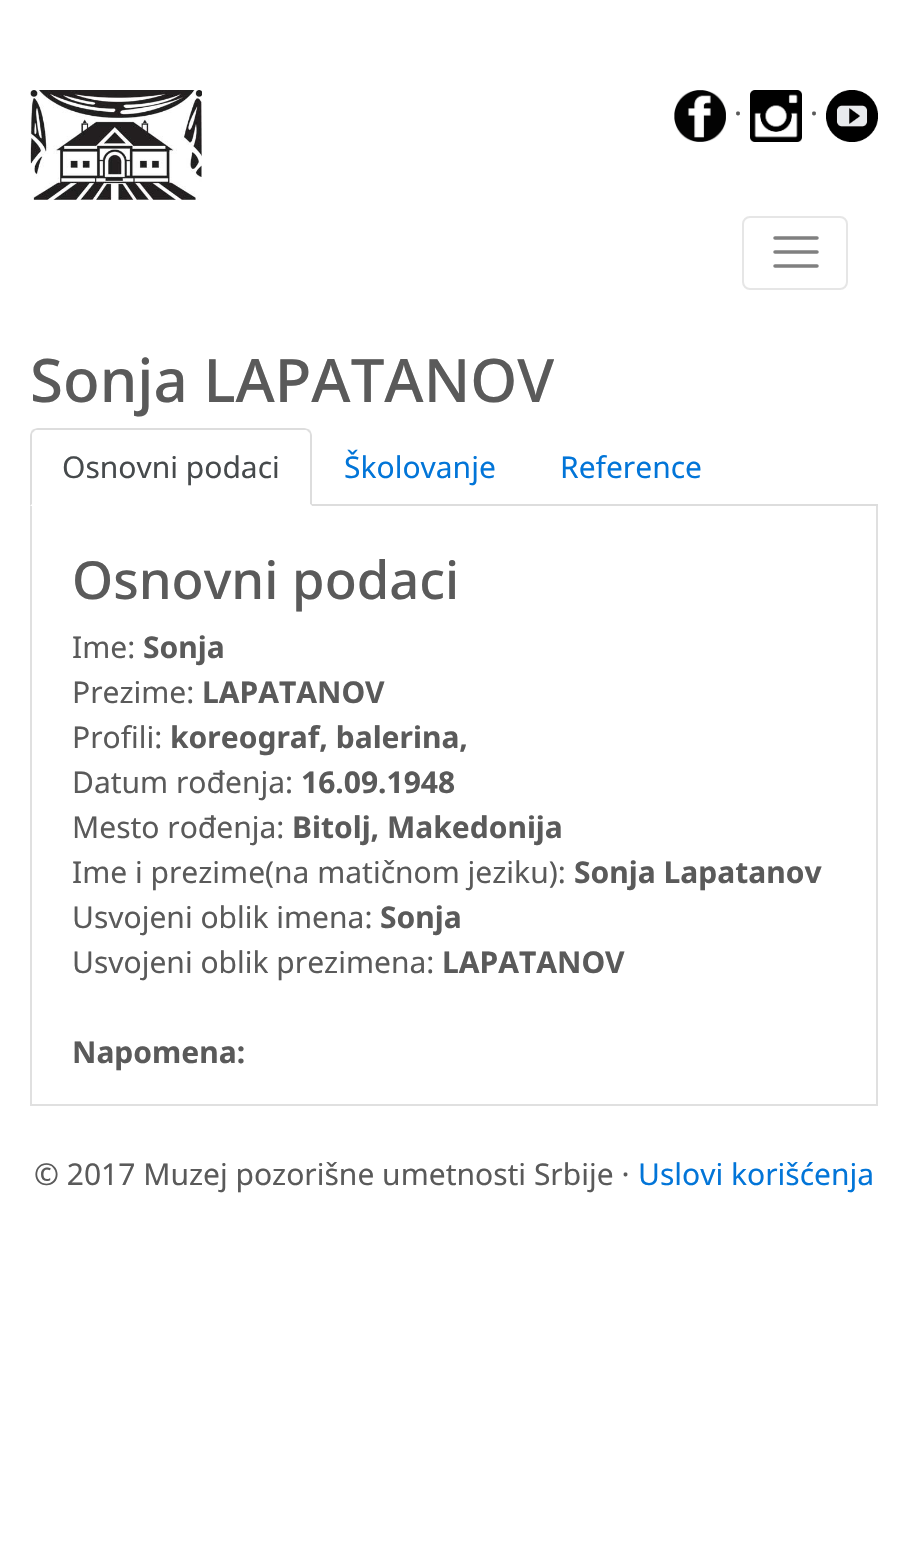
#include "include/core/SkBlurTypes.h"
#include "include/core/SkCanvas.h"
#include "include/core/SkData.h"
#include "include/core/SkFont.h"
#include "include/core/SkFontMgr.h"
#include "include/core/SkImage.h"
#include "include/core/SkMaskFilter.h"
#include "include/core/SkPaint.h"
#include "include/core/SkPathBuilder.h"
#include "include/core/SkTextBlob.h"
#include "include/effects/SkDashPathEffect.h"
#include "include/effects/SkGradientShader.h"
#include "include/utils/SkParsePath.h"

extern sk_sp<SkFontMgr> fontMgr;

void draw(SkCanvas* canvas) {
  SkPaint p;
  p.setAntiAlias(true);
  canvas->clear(SK_ColorWHITE);
  canvas->drawImageRect(SkImages::DeferredFromEncodedData(SkData::MakeFromFileName("images/1.png")), SkRect::MakeLTRB(30, 90, 202, 200), SkSamplingOptions());
  canvas->drawImageRect(SkImages::DeferredFromEncodedData(SkData::MakeFromFileName("images/2.png")), SkRect::MakeLTRB(674, 90, 726, 142), SkSamplingOptions());
  canvas->drawImageRect(SkImages::DeferredFromEncodedData(SkData::MakeFromFileName("images/3.png")), SkRect::MakeLTRB(750, 90, 802, 142), SkSamplingOptions());
  canvas->drawImageRect(SkImages::DeferredFromEncodedData(SkData::MakeFromFileName("images/4.png")), SkRect::MakeLTRB(826, 90, 878, 142), SkSamplingOptions());
  p.setStyle(SkPaint::kStroke_Style);
  p.setStrokeWidth(2);
  p.setColor(SkColorSetRGB(230, 230, 230));
  canvas->drawRoundRect(SkRect::MakeLTRB(743, 217, 847, 289), 7, 7, p);
  p.setStrokeWidth(3.5f);
  p.setStrokeCap(SkPaint::kRound_Cap);
  p.setColor(SkColorSetRGB(128, 128, 128));
  canvas->drawPath(SkPathBuilder().moveTo(775, 238).lineTo(817, 238).moveTo(775, 252).lineTo(817, 252).moveTo(775, 266).lineTo(817, 266).detach(), p);
  p.setStyle(SkPaint::kFill_Style);
  p.setColor(SkColorSetRGB(221, 221, 221));
  canvas->drawRect(SkRect::MakeLTRB(312, 504, 878, 506), p);
  canvas->drawPath(SkPathBuilder().moveTo(38, 428).cubicTo(36, 428, 34, 429, 32, 430).lineTo(34, 432).cubicTo(34, 430, 36, 430, 38, 430).lineTo(304, 430).cubicTo(306, 430, 308, 430, 308, 432).lineTo(310, 430).cubicTo(308, 429, 306, 428, 304, 428).close().detach(), p);
  canvas->drawPath(SkPathBuilder().moveTo(312, 506).lineTo(312, 436).cubicTo(312, 434, 311, 432, 310, 430).lineTo(308, 432).cubicTo(310, 432, 310, 434, 310, 436).lineTo(310, 504).close().detach(), p);
  p.setColor(SK_ColorWHITE);
  canvas->drawPath(SkPathBuilder().moveTo(312, 506).lineTo(310, 504).lineTo(32, 504).lineTo(30, 506).close().detach(), p);
  p.setColor(SkColorSetRGB(221, 221, 221));
  canvas->drawPath(SkPathBuilder().moveTo(30, 506).lineTo(32, 504).lineTo(32, 436).cubicTo(32, 434, 32, 432, 34, 432).lineTo(32, 430).cubicTo(31, 432, 30, 434, 30, 436).close().detach(), p);
  p.setColor(SkColorSetRGB(224, 224, 224));
  canvas->drawRect(SkRect::MakeLTRB(876, 506, 878, 1106), p);
  canvas->drawRect(SkRect::MakeLTRB(30, 1104, 878, 1106), p);
  canvas->drawRect(SkRect::MakeLTRB(30, 506, 32, 1106), p);
  SkFont font1(fontMgr->matchFamilyStyle("Noto Sans", SkFontStyle::Normal()), 30);
  font1.setSubpixel(true);
  p.setColor(SkColorSetRGB(90, 90, 90));
  canvas->drawString("·", 734, 124, font1, p);
  canvas->drawString("·", 810, 124, font1, p);
  SkFont font2(fontMgr->matchFamilyStyle("Noto Sans", SkFontStyle(500, SkFontStyle::kNormal_Width, SkFontStyle::kUpright_Slant)), 60);
  font2.setSubpixel(true);
  canvas->drawString("Sonja LAPATANOV", 30, 402, font2, p);
  p.setColor(SkColorSetRGB(70, 74, 76));
  canvas->drawString("Osnovni podaci", 62, 478, font1, p);
  p.setColor(SkColorSetRGB(2, 117, 216));
  canvas->drawString("Školovanje", 344, 478, font1, p);
  canvas->drawString("Reference", 560, 478, font1, p);
  SkFont font3(fontMgr->matchFamilyStyle("Noto Sans", SkFontStyle(500, SkFontStyle::kNormal_Width, SkFontStyle::kUpright_Slant)), 52.5f);
  font3.setSubpixel(true);
  p.setColor(SkColorSetRGB(90, 90, 90));
  canvas->drawString("Osnovni podaci", 72, 599, font3, p);
  canvas->drawString("Ime:", 72, 658, font1, p);
  SkFont font4(fontMgr->matchFamilyStyle("Noto Sans", SkFontStyle::Bold()), 30);
  font4.setSubpixel(true);
  canvas->drawString("Sonja", 143, 658, font4, p);
  canvas->drawString("Prezime:", 72, 703, font1, p);
  canvas->drawString("LAPATANOV", 202, 703, font4, p);
  canvas->drawString("Profili:", 72, 748, font1, p);
  canvas->drawString("koreograf, balerina,", 170, 748, font4, p);
  canvas->drawString("Datum rođenja:", 72, 793, font1, p);
  canvas->drawString("16.09.1948", 301, 793, font4, p);
  canvas->drawString("Mesto rođenja:", 72, 838, font1, p);
  canvas->drawString("Bitolj, Makedonija", 292, 838, font4, p);
  canvas->drawString("Ime i prezime(na matičnom jeziku):", 72, 883, font1, p);
  canvas->drawString("Sonja Lapatanov", 574, 883, font4, p);
  canvas->drawString("Usvojeni oblik imena:", 72, 928, font1, p);
  canvas->drawString("Sonja", 380, 928, font4, p);
  canvas->drawString("Usvojeni oblik prezimena:", 72, 973, font1, p);
  canvas->drawString("LAPATANOV", 442, 973, font4, p);
  canvas->drawString("Napomena:", 72, 1063, font4, p);
  canvas->drawString("© 2017 Muzej pozorišne umetnosti Srbije ·", 34, 1185, font1, p);
  p.setColor(SkColorSetRGB(2, 117, 216));
  canvas->drawString("Uslovi korišćenja", 638, 1185, font1, p);
}
